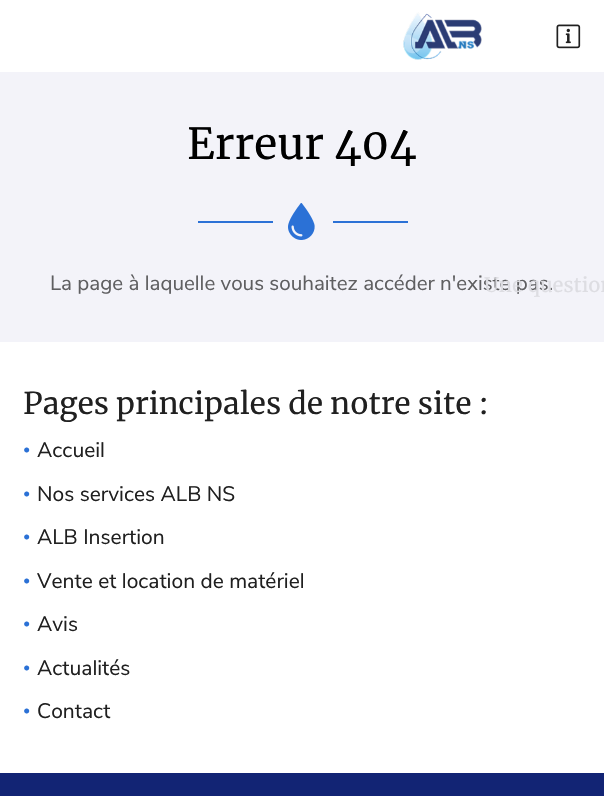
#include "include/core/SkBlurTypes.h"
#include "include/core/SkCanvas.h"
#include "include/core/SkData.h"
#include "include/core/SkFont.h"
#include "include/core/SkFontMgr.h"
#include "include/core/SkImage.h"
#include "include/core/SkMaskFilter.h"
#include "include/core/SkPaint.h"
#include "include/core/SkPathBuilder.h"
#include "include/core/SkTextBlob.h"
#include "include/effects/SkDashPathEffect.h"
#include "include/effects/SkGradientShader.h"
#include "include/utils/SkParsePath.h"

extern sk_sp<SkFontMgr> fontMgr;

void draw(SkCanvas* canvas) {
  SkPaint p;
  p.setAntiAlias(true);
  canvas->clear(SK_ColorWHITE);
  p.setColor(SkColorSetRGB(243, 243, 249));
  canvas->drawRect(SkRect::MakeLTRB(0, 72, 604, 342), p);
  canvas->drawImageRect(SkImages::DeferredFromEncodedData(SkData::MakeFromFileName("images/1.png")), SkRect::MakeLTRB(288, 203, 315, 240), SkSamplingOptions());
  p.setColor(SkColorSetRGB(43, 113, 214));
  canvas->drawRect(SkRect::MakeLTRB(198, 221, 273, 223), p);
  canvas->drawRect(SkRect::MakeLTRB(333, 221, 408, 223), p);
  canvas->drawImageRect(SkImages::DeferredFromEncodedData(SkData::MakeFromFileName("images/2.png")), SkRect::MakeLTRB(403, 12, 482, 60), SkSamplingOptions());
  canvas->drawImageRect(SkImages::DeferredFromEncodedData(SkData::MakeFromFileName("images/3.png")), SkRect::MakeLTRB(556, 24, 581, 49), SkSamplingOptions());
  p.setColor(SkColorSetRGB(18, 36, 116));
  canvas->drawRect(SkRect::MakeLTRB(0, 773, 604, 796), p);
  SkFont font1(fontMgr->matchFamilyStyle("Merriweather", SkFontStyle::Normal()), 42.75f);
  font1.setSubpixel(true);
  p.setColor(SK_ColorBLACK);
  canvas->drawString("Erreur 404", 187, 159, font1, p);
  SkFont font2(fontMgr->matchFamilyStyle("Nunito Sans", SkFontStyle::Normal()), 20.6f);
  font2.setSubpixel(true);
  p.setColor(SkColorSetRGB(95, 95, 97));
  canvas->drawString("La page à laquelle vous souhaitez accéder n'existe pas.", 50, 290, font2, p);
  SkFont font3(fontMgr->matchFamilyStyle("Merriweather", SkFontStyle::Normal()), 30);
  font3.setSubpixel(true);
  p.setColor(SkColorSetRGB(32, 32, 32));
  canvas->drawString("Pages principales de notre site :", 23, 414, font3, p);
  SkFont font4(fontMgr->matchFamilyStyle("Liberation Serif", SkFontStyle::Normal()), 21);
  font4.setSubpixel(true);
  p.setColor(SkColorSetRGB(43, 113, 214));
  canvas->drawString("•", 23, 457, font4, p);
  SkFont font5(fontMgr->matchFamilyStyle("Nunito Sans", SkFontStyle::Normal()), 21);
  font5.setSubpixel(true);
  p.setColor(SkColorSetRGB(32, 32, 32));
  canvas->drawString("Accueil", 37, 457, font5, p);
  p.setColor(SkColorSetRGB(43, 113, 214));
  canvas->drawString("•", 23, 501, font4, p);
  p.setColor(SkColorSetRGB(32, 32, 32));
  canvas->drawString("Nos services ALB NS", 37, 501, font5, p);
  p.setColor(SkColorSetRGB(43, 113, 214));
  canvas->drawString("•", 23, 544, font4, p);
  p.setColor(SkColorSetRGB(32, 32, 32));
  canvas->drawString("ALB Insertion", 37, 544, font5, p);
  p.setColor(SkColorSetRGB(43, 113, 214));
  canvas->drawString("•", 23, 588, font4, p);
  p.setColor(SkColorSetRGB(32, 32, 32));
  canvas->drawString("Vente et location de matériel", 37, 588, font5, p);
  p.setColor(SkColorSetRGB(43, 113, 214));
  canvas->drawString("•", 23, 631, font4, p);
  p.setColor(SkColorSetRGB(32, 32, 32));
  canvas->drawString("Avis", 37, 631, font5, p);
  p.setColor(SkColorSetRGB(43, 113, 214));
  canvas->drawString("•", 23, 675, font4, p);
  p.setColor(SkColorSetRGB(32, 32, 32));
  canvas->drawString("Actualités", 37, 675, font5, p);
  p.setColor(SkColorSetRGB(43, 113, 214));
  canvas->drawString("•", 23, 718, font4, p);
  p.setColor(SkColorSetRGB(32, 32, 32));
  canvas->drawString("Contact", 37, 718, font5, p);
  SkFont font6(fontMgr->matchFamilyStyle("Merriweather", SkFontStyle::Normal()), 20);
  font6.setSubpixel(true);
  p.setColor(SkColorSetRGB(221, 221, 226));
  canvas->drawString("Une question", 484, 292, font6, p);
}
